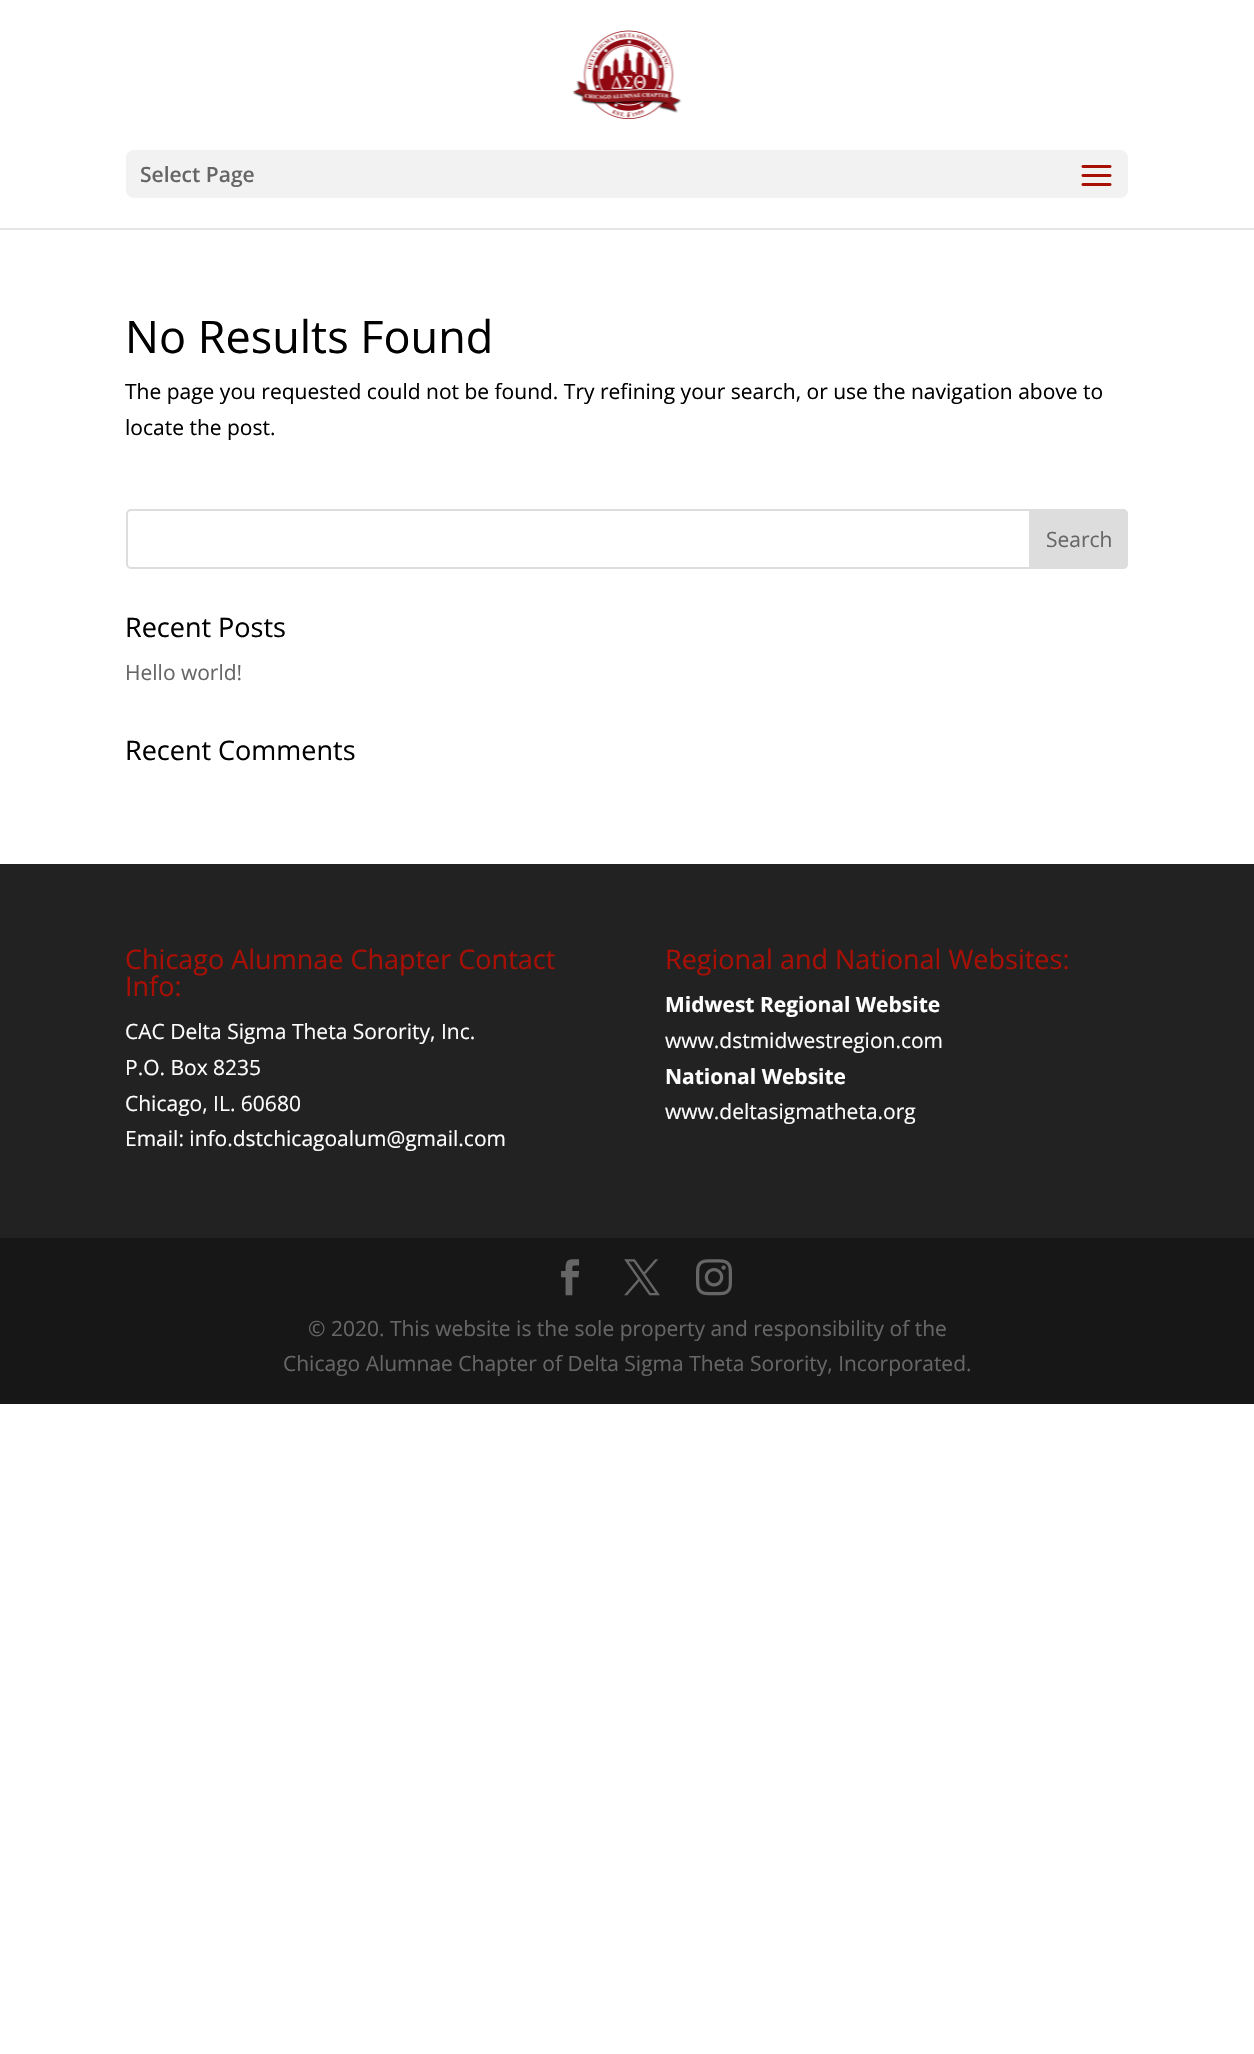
#include "include/core/SkBlurTypes.h"
#include "include/core/SkCanvas.h"
#include "include/core/SkData.h"
#include "include/core/SkFont.h"
#include "include/core/SkFontMgr.h"
#include "include/core/SkImage.h"
#include "include/core/SkMaskFilter.h"
#include "include/core/SkPaint.h"
#include "include/core/SkPathBuilder.h"
#include "include/core/SkTextBlob.h"
#include "include/effects/SkDashPathEffect.h"
#include "include/effects/SkGradientShader.h"
#include "include/utils/SkParsePath.h"

extern sk_sp<SkFontMgr> fontMgr;

void draw(SkCanvas* canvas) {
  SkPaint p;
  p.setAntiAlias(true);
  canvas->clear(SK_ColorWHITE);
  p.setColor(SkColorSetRGB(230, 230, 230));
  canvas->drawRect(SkRect::MakeLTRB(0, 228, 1254, 230), p);
  canvas->drawImageRect(SkImages::DeferredFromEncodedData(SkData::MakeFromFileName("images/1.png")), SkRect::MakeLTRB(572, 30, 682, 119), SkSamplingOptions());
  p.setColor(SkColorSetRGB(242, 242, 242));
  canvas->drawRoundRect(SkRect::MakeLTRB(126, 150, 1128, 198), 8, 8, p);
  canvas->drawImageRect(SkImages::DeferredFromEncodedData(SkData::MakeFromFileName("images/2.png")), SkRect::MakeLTRB(1081, 165, 1112, 186), SkSamplingOptions());
  p.setStyle(SkPaint::kStroke_Style);
  p.setStrokeWidth(2);
  p.setColor(SkColorSetRGB(221, 221, 221));
  canvas->drawRoundRect(SkRect::MakeLTRB(127, 510, 1127, 568), 4, 4, p);
  p.setStyle(SkPaint::kFill_Style);
  canvas->drawPath(SkPathBuilder().moveTo(1030, 510).lineTo(1123, 510).cubicTo(1125, 510, 1127, 512, 1127, 514).lineTo(1127, 564).cubicTo(1127, 566, 1125, 568, 1123, 568).lineTo(1030, 568).close().detach(), p);
  p.setStyle(SkPaint::kStroke_Style);
  canvas->drawPath(SkPathBuilder().moveTo(1030, 510).lineTo(1123, 510).cubicTo(1125, 510, 1127, 512, 1127, 514).lineTo(1127, 564).cubicTo(1127, 566, 1125, 568, 1123, 568).lineTo(1030, 568).close().detach(), p);
  p.setStyle(SkPaint::kFill_Style);
  p.setColor(SkColorSetRGB(34, 34, 34));
  canvas->drawRect(SkRect::MakeLTRB(0, 864, 1254, 1238), p);
  p.setColor(SkColorSetRGB(23, 23, 23));
  canvas->drawRect(SkRect::MakeLTRB(0, 1238, 1254, 1404), p);
  canvas->drawImageRect(SkImages::DeferredFromEncodedData(SkData::MakeFromFileName("images/3.png")), SkRect::MakeLTRB(561, 1259, 580, 1296), SkSamplingOptions());
  canvas->drawImageRect(SkImages::DeferredFromEncodedData(SkData::MakeFromFileName("images/4.png")), SkRect::MakeLTRB(624, 1259, 660, 1296), SkSamplingOptions());
  canvas->drawImageRect(SkImages::DeferredFromEncodedData(SkData::MakeFromFileName("images/5.png")), SkRect::MakeLTRB(696, 1259, 732, 1296), SkSamplingOptions());
  SkFont font1(fontMgr->matchFamilyStyle("Open Sans", SkFontStyle(600, SkFontStyle::kNormal_Width, SkFontStyle::kUpright_Slant)), 21);
  font1.setSubpixel(true);
  p.setColor(SkColorSetRGB(102, 102, 102));
  canvas->drawString("Select Page", 140, 182, font1, p);
  SkFont font2(fontMgr->matchFamilyStyle("Open Sans", SkFontStyle::Normal()), 45);
  font2.setSubpixel(true);
  p.setColor(SK_ColorBLACK);
  canvas->drawString("No Results Found", 125, 353, font2, p);
  SkFont font3(fontMgr->matchFamilyStyle("Open Sans", SkFontStyle::Normal()), 21);
  font3.setSubpixel(true);
  canvas->drawString("The page you requested could not be found. Try refining your search, or use the navigation above to", 125, 399, font3, p);
  canvas->drawString("locate the post.", 125, 435, font3, p);
  p.setColor(SkColorSetRGB(102, 102, 102));
  canvas->drawString("Search", 1046, 547, font3, p);
  SkFont font4(fontMgr->matchFamilyStyle("Open Sans", SkFontStyle::Normal()), 27);
  font4.setSubpixel(true);
  p.setColor(SK_ColorBLACK);
  canvas->drawString("Recent Posts", 125, 637, font4, p);
  p.setColor(SkColorSetRGB(102, 102, 102));
  canvas->drawString("Hello world!", 125, 680, font3, p);
  p.setColor(SK_ColorBLACK);
  canvas->drawString("Recent Comments", 125, 760, font4, p);
  p.setColor(SkColorSetRGB(168, 15, 5));
  canvas->drawString("Chicago Alumnae Chapter Contact", 125, 969, font4, p);
  canvas->drawString("Info:", 125, 996, font4, p);
  p.setColor(SK_ColorWHITE);
  canvas->drawString("CAC Delta Sigma Theta Sorority, Inc.", 125, 1039, font3, p);
  canvas->drawString("P.O. Box 8235", 125, 1075, font3, p);
  canvas->drawString("Chicago, IL. 60680", 125, 1111, font3, p);
  canvas->drawString("Email: info.dstchicagoalum@gmail.com", 125, 1146, font3, p);
  p.setColor(SkColorSetRGB(168, 15, 5));
  canvas->drawString("Regional and National Websites:", 665, 969, font4, p);
  SkFont font5(fontMgr->matchFamilyStyle("Open Sans", SkFontStyle::Bold()), 21);
  font5.setSubpixel(true);
  p.setColor(SK_ColorWHITE);
  canvas->drawString("Midwest Regional Website", 665, 1012, font5, p);
  canvas->drawString("www.dstmidwestregion.com", 665, 1048, font3, p);
  canvas->drawString("National Website", 665, 1084, font5, p);
  canvas->drawString("www.deltasigmatheta.org", 665, 1119, font3, p);
  p.setColor(SkColorSetRGB(102, 102, 102));
  canvas->drawString("© 2020. This website is the sole property and responsibility of the", 308, 1336, font3, p);
  canvas->drawString("Chicago Alumnae Chapter of Delta Sigma Theta Sorority, Incorporated.", 283, 1371, font3, p);
}
